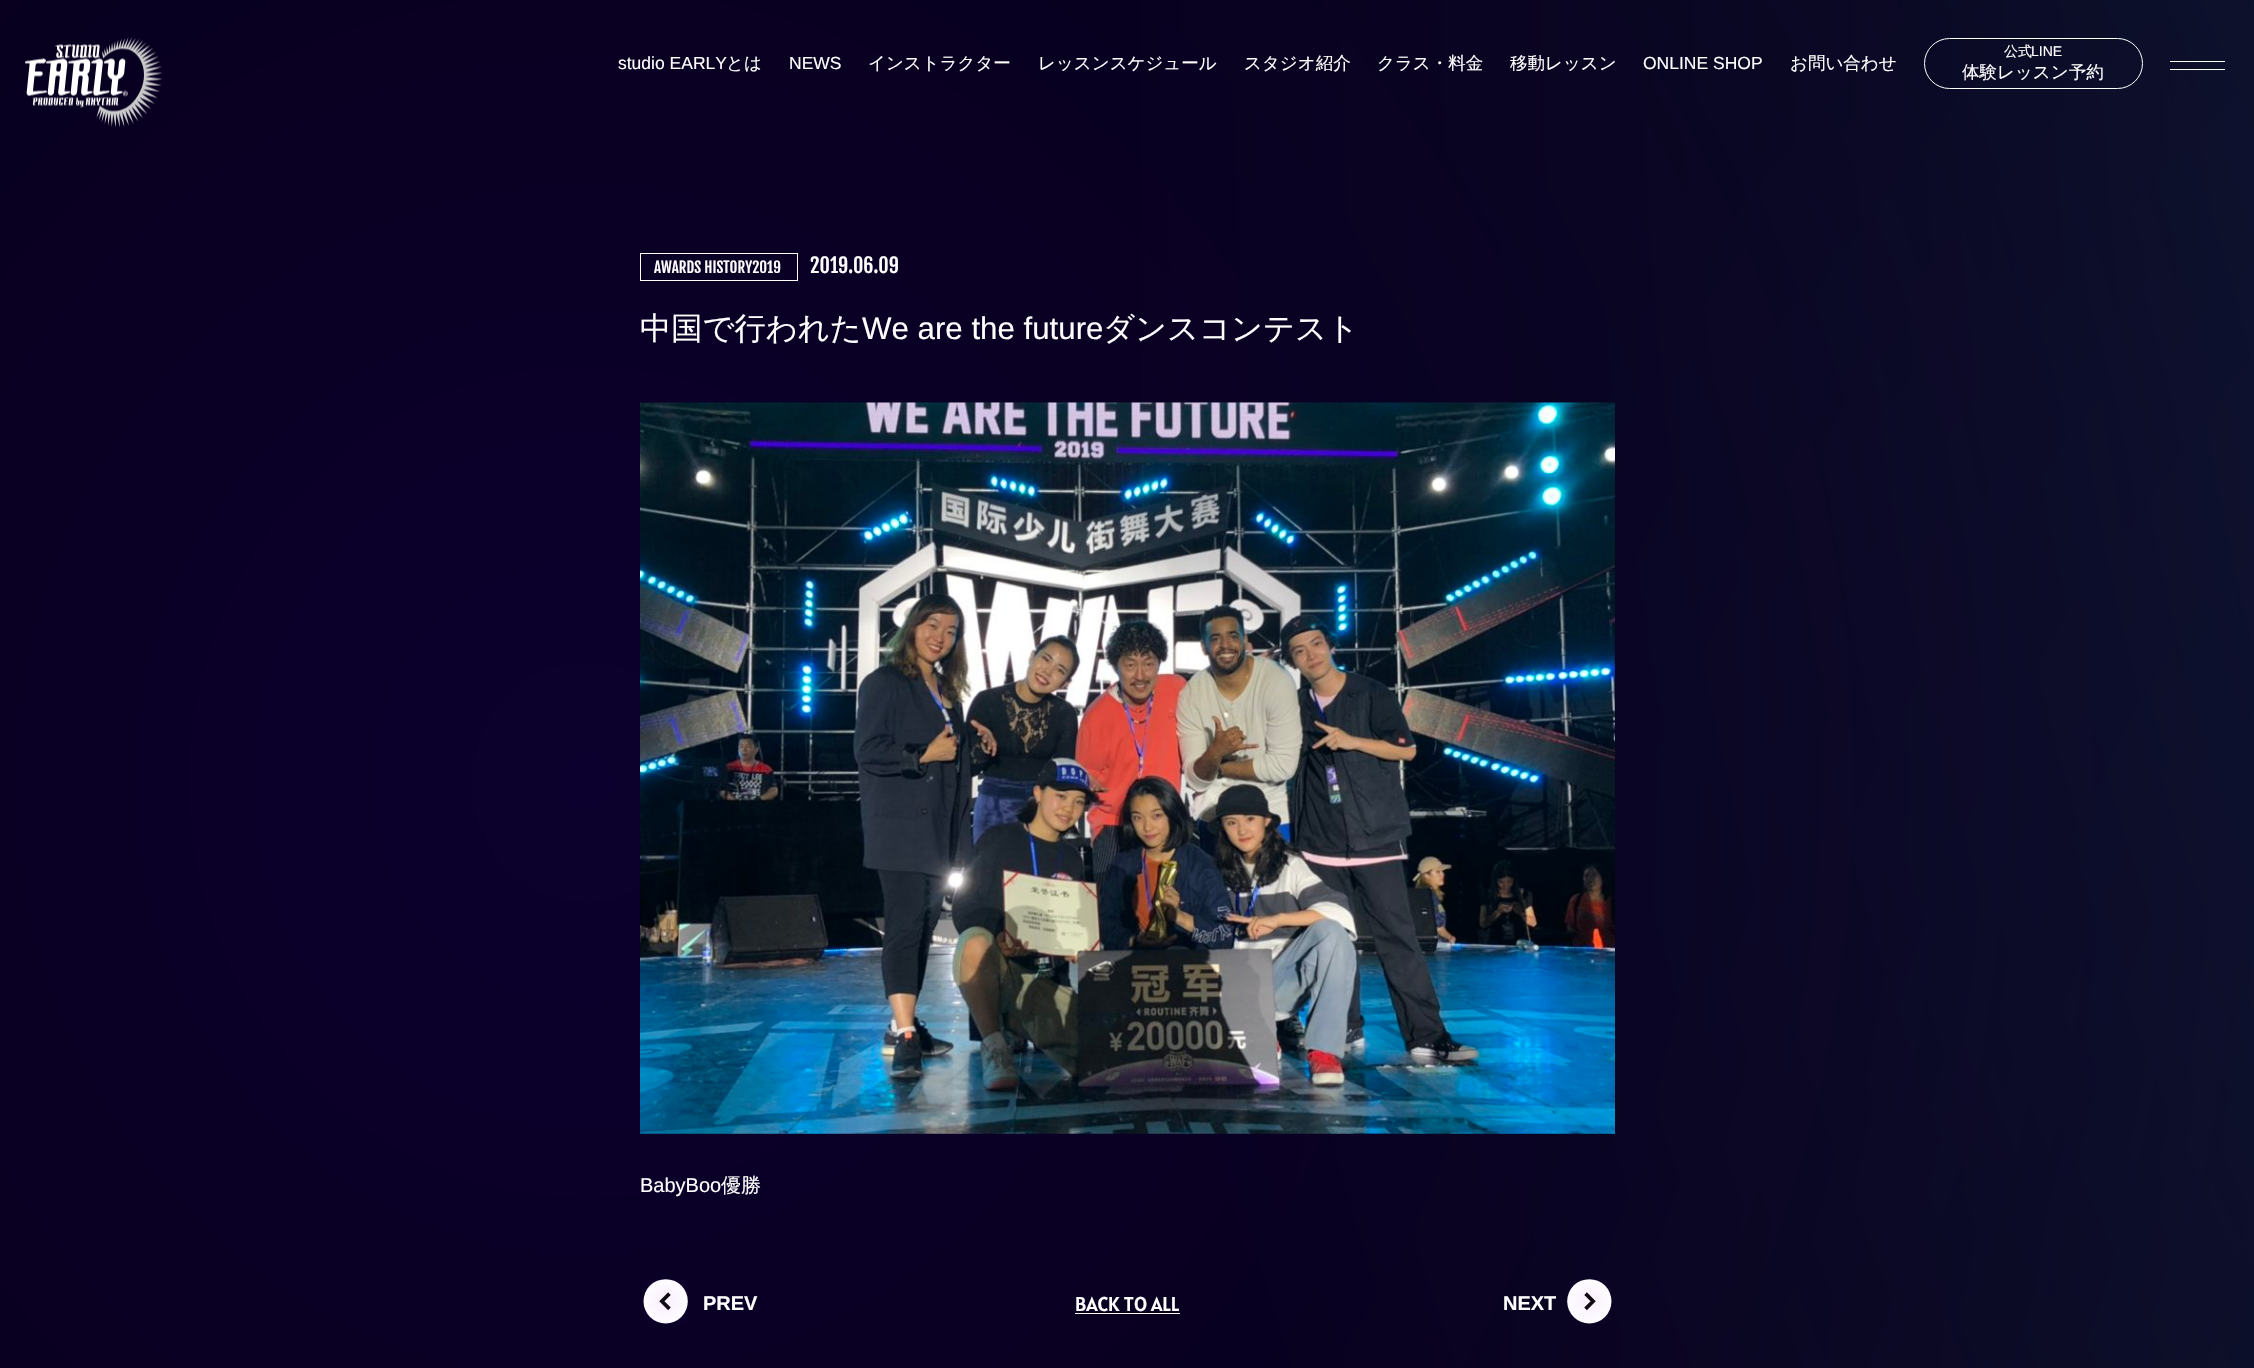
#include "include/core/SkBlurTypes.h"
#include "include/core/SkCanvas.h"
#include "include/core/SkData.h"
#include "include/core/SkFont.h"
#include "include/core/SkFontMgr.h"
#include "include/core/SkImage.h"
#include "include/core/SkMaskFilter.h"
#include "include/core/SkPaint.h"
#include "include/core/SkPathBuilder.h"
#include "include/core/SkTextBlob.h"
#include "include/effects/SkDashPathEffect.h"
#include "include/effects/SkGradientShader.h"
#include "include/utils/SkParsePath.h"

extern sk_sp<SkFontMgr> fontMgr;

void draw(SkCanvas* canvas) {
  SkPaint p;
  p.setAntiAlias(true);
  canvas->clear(SK_ColorWHITE);
  {
    const SkColor colors[] = {SkColorSetRGB(18, 28, 44), SK_ColorBLACK};
    const float stops[] = {0, 0.5f};
    SkMatrix m = SkMatrix::Translate(4239, 1467).preScale(5995, 4841);
    p.setShader(SkGradientShader::MakeRadial({0, 0}, 1, colors, stops, 2, SkTileMode::kClamp, 0, &m));
    p.setAlpha(255);
  }
  canvas->drawRect(SkRect::MakeLTRB(0, 0, 2254, 1368), p);
  {
    const SkColor colors[] = {SkColorSetRGB(24, 50, 84), SkColorSetARGB(0, 24, 50, 84)};
    const float stops[] = {0, 0.5f};
    SkMatrix m = SkMatrix::Translate(3608, 0).preScale(5102, 6916);
    p.setShader(SkGradientShader::MakeRadial({0, 0}, 1, colors, stops, 2, SkTileMode::kClamp, 0, &m));
    p.setAlpha(255);
  }
  canvas->drawRect(SkRect::MakeLTRB(1140, 0, 2254, 1368), p);
  {
    const SkColor colors[] = {SkColorSetRGB(12, 0, 46), SkColorSetARGB(0, 12, 0, 46)};
    const float stops[] = {0, 0.5f};
    SkMatrix m = SkMatrix::Translate(586, 782).preScale(5549, 5809);
    p.setShader(SkGradientShader::MakeRadial({0, 0}, 1, colors, stops, 2, SkTileMode::kClamp, 0, &m));
    p.setAlpha(255);
  }
  canvas->drawRect(SkRect::MakeLTRB(0, 0, 2254, 1368), p);
  canvas->drawImageRect(SkImages::DeferredFromEncodedData(SkData::MakeFromFileName("images/1.png")), SkRect::MakeLTRB(25, 37, 162, 128), SkSamplingOptions());
  p.setStyle(SkPaint::kStroke_Style);
  p.setStrokeWidth(1);
  p.setShader(nullptr);
  p.setColor(SK_ColorWHITE);
  canvas->drawRoundRect(SkRect::MakeLTRB(1924.5f, 38.5f, 2142.5f, 88.5f), 25, 25, p);
  p.setStyle(SkPaint::kFill_Style);
  canvas->drawRect(SkRect::MakeLTRB(2170, 61, 2225, 62), p);
  canvas->drawRect(SkRect::MakeLTRB(2170, 69, 2225, 70), p);
  p.setStyle(SkPaint::kStroke_Style);
  canvas->drawRect(SkRect::MakeLTRB(640.5f, 253.5f, 797.5f, 280.5f), p);
  canvas->drawImageRect(SkImages::DeferredFromEncodedData(SkData::MakeFromFileName("images/2.png")), SkRect::MakeLTRB(640, 402, 1615, 1134), SkSamplingOptions());
  canvas->drawImageRect(SkImages::DeferredFromEncodedData(SkData::MakeFromFileName("images/3.png")), SkRect::MakeLTRB(643, 1279, 688, 1324), SkSamplingOptions());
  p.setStyle(SkPaint::kFill_Style);
  canvas->drawRect(SkRect::MakeLTRB(1075, 1313, 1180, 1314), p);
  canvas->drawImageRect(SkImages::DeferredFromEncodedData(SkData::MakeFromFileName("images/4.png")), SkRect::MakeLTRB(1567, 1279, 1612, 1324), SkSamplingOptions());
  SkFont font1(fontMgr->matchFamilyStyle("Liberation Sans", SkFontStyle::Normal()), 17.5f);
  font1.setSubpixel(true);
  canvas->drawString("studio EARLY", 618, 69, font1, p);
  SkFont font2(fontMgr->matchFamilyStyle("WenQuanYi Zen Hei", SkFontStyle(500, SkFontStyle::kNormal_Width, SkFontStyle::kUpright_Slant)), 17.5f);
  font2.setSubpixel(true);
  canvas->drawString("とは", 726, 69, font2, p);
  canvas->drawString("NEWS", 789, 69, font1, p);
  canvas->drawString("インストラクター", 868, 69, font2, p);
  canvas->drawString("レッスンスケジュール", 1038, 69, font2, p);
  canvas->drawString("スタジオ紹介", 1244, 69, font2, p);
  canvas->drawString("クラス・料金", 1377, 69, font2, p);
  canvas->drawString("移動レッスン", 1510, 69, font2, p);
  canvas->drawString("ONLINE SHOP", 1643, 69, font1, p);
  canvas->drawString("お問い合わせ", 1790, 69, font2, p);
  SkFont font3(fontMgr->matchFamilyStyle("WenQuanYi Zen Hei", SkFontStyle(500, SkFontStyle::kNormal_Width, SkFontStyle::kUpright_Slant)), 14);
  font3.setSubpixel(true);
  canvas->drawString("公式", 2004, 56, font3, p);
  SkFont font4(fontMgr->matchFamilyStyle("Liberation Sans", SkFontStyle::Normal()), 14);
  font4.setSubpixel(true);
  canvas->drawString("LINE", 2031, 56, font4, p);
  canvas->drawString("体験レッスン予約", 1962, 78, font2, p);
  SkFont font5(fontMgr->matchFamilyStyle("Fjalla One", SkFontStyle::Normal()), 15);
  font5.setSubpixel(true);
  canvas->drawString("AWARDS HISTORY2019", 654, 273, font5, p);
  SkFont font6(fontMgr->matchFamilyStyle("Fjalla One", SkFontStyle::Normal()), 20);
  font6.setSubpixel(true);
  canvas->drawString("2019.06.09", 810, 273, font6, p);
  SkFont font7(fontMgr->matchFamilyStyle("WenQuanYi Zen Hei", SkFontStyle(500, SkFontStyle::kNormal_Width, SkFontStyle::kUpright_Slant)), 31.25f);
  font7.setSubpixel(true);
  canvas->drawString("中国で行われた", 640, 339, font7, p);
  SkFont font8(fontMgr->matchFamilyStyle("Liberation Sans", SkFontStyle::Normal()), 31.25f);
  font8.setSubpixel(true);
  canvas->drawString("We are the future", 862, 339, font8, p);
  canvas->drawString("ダンスコンテスト", 1103, 339, font7, p);
  SkFont font9(fontMgr->matchFamilyStyle("Liberation Sans", SkFontStyle::Normal()), 20);
  font9.setSubpixel(true);
  canvas->drawString("BabyBoo", 640, 1192, font9, p);
  SkFont font10(fontMgr->matchFamilyStyle("WenQuanYi Zen Hei", SkFontStyle(500, SkFontStyle::kNormal_Width, SkFontStyle::kUpright_Slant)), 20);
  font10.setSubpixel(true);
  canvas->drawString("優勝", 721, 1192, font10, p);
  SkFont font11(fontMgr->matchFamilyStyle("Liberation Sans", SkFontStyle::Bold()), 20);
  font11.setSubpixel(true);
  canvas->drawString("PREV", 703, 1310, font11, p);
  SkFont font12(fontMgr->matchFamilyStyle("Alatsi", SkFontStyle::Normal()), 20);
  font12.setSubpixel(true);
  canvas->drawString("BACK TO ALL", 1075, 1311, font12, p);
  canvas->drawString("NEXT", 1503, 1310, font11, p);
}
